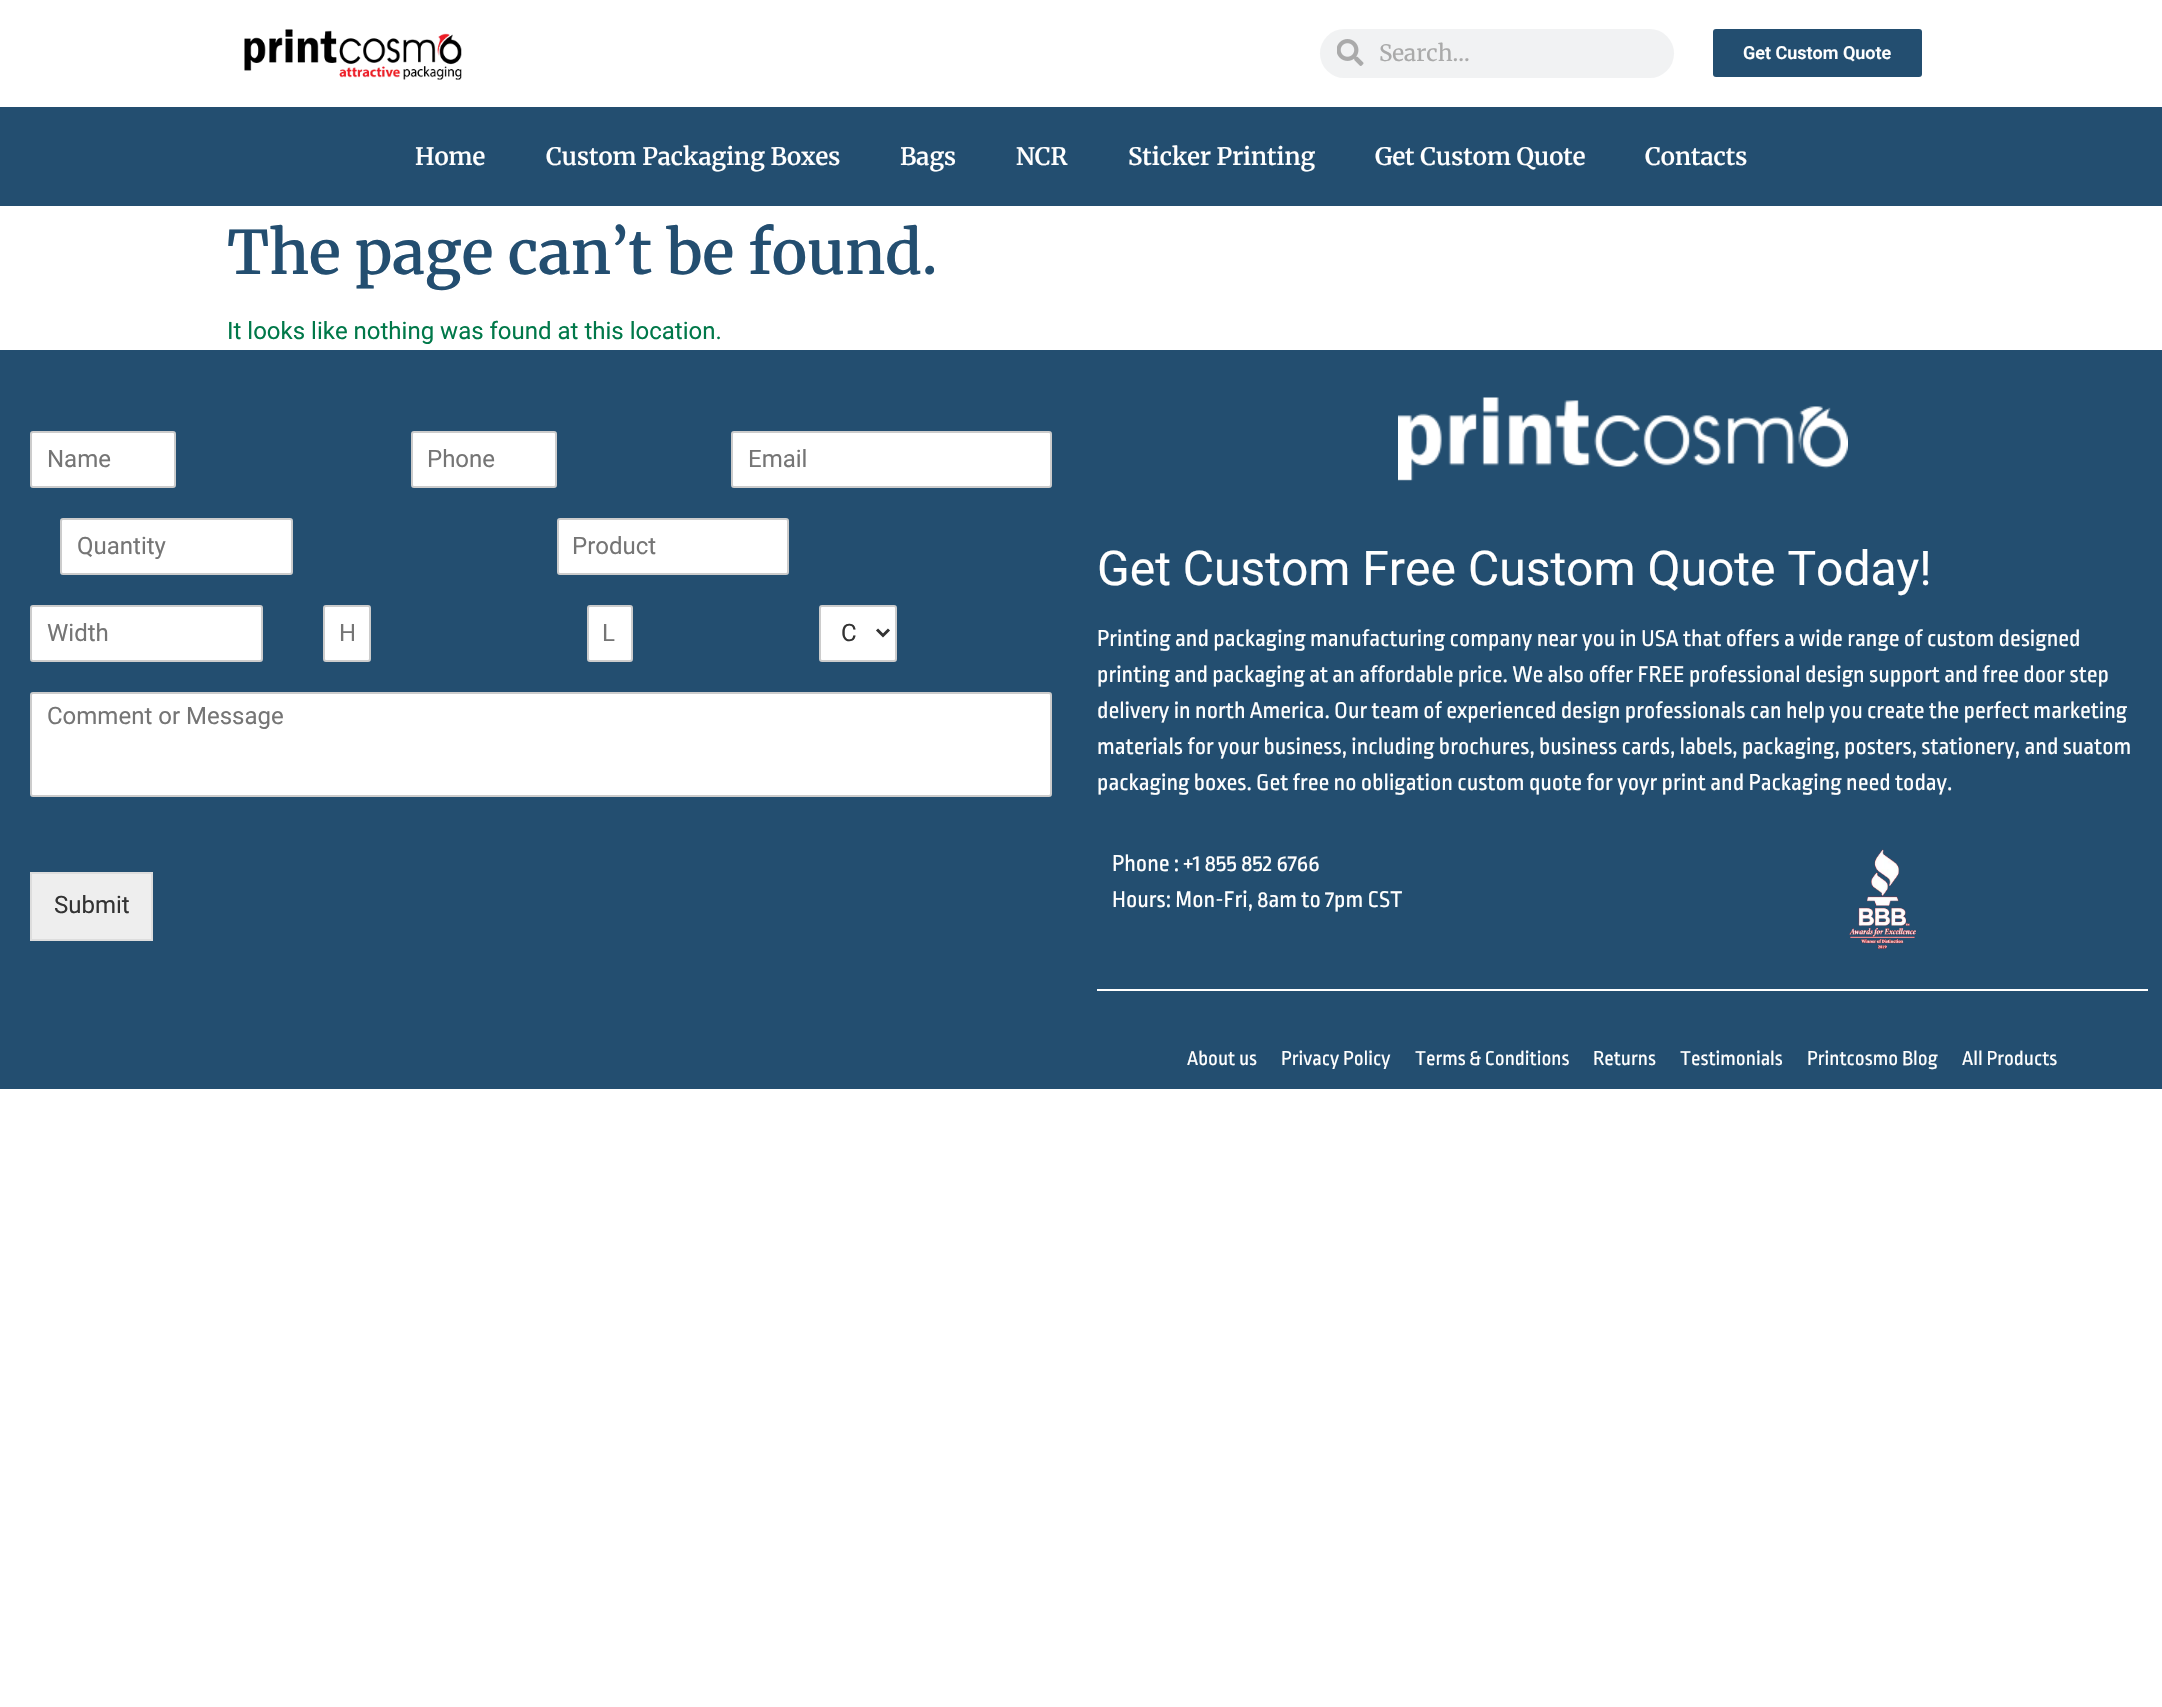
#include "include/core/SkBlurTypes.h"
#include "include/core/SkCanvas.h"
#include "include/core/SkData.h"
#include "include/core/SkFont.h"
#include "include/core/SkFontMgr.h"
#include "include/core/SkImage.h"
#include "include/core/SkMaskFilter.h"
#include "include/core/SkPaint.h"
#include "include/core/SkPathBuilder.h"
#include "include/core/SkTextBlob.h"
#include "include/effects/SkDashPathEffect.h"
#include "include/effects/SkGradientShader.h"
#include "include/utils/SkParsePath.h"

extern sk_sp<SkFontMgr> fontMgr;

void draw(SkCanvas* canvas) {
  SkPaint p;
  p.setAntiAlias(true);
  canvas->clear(SK_ColorWHITE);
  canvas->drawImageRect(SkImages::DeferredFromEncodedData(SkData::MakeFromFileName("images/1.png")), SkRect::MakeLTRB(244, 29, 462, 80), SkSamplingOptions());
  p.setColor(SkColorSetRGB(241, 242, 243));
  canvas->drawRoundRect(SkRect::MakeLTRB(1320, 29, 1674, 78), 24.5f, 24.5f, p);
  canvas->drawImageRect(SkImages::DeferredFromEncodedData(SkData::MakeFromFileName("images/2.png")), SkRect::MakeLTRB(1337, 39, 1364, 66), SkSamplingOptions());
  p.setColor(SkColorSetRGB(35, 78, 112));
  canvas->drawRoundRect(SkRect::MakeLTRB(1713, 29, 1922, 77), 3, 3, p);
  canvas->drawRect(SkRect::MakeLTRB(0, 107, 2162, 206), p);
  canvas->drawRect(SkRect::MakeLTRB(0, 350, 2162, 1089), p);
  p.setColor(SK_ColorWHITE);
  canvas->drawRoundRect(SkRect::MakeLTRB(31, 432, 175, 487), 2, 2, p);
  p.setStyle(SkPaint::kStroke_Style);
  p.setStrokeWidth(2);
  p.setColor(SkColorSetRGB(204, 204, 204));
  canvas->drawRoundRect(SkRect::MakeLTRB(31, 432, 175, 487), 2, 2, p);
  p.setStyle(SkPaint::kFill_Style);
  p.setColor(SK_ColorWHITE);
  canvas->drawRoundRect(SkRect::MakeLTRB(412, 432, 556, 487), 2, 2, p);
  p.setStyle(SkPaint::kStroke_Style);
  p.setColor(SkColorSetRGB(204, 204, 204));
  canvas->drawRoundRect(SkRect::MakeLTRB(412, 432, 556, 487), 2, 2, p);
  p.setStyle(SkPaint::kFill_Style);
  p.setColor(SK_ColorWHITE);
  canvas->drawRoundRect(SkRect::MakeLTRB(732, 432, 1051, 487), 2, 2, p);
  p.setStyle(SkPaint::kStroke_Style);
  p.setColor(SkColorSetRGB(204, 204, 204));
  canvas->drawRoundRect(SkRect::MakeLTRB(732, 432, 1051, 487), 2, 2, p);
  p.setStyle(SkPaint::kFill_Style);
  p.setColor(SK_ColorWHITE);
  canvas->drawRoundRect(SkRect::MakeLTRB(61, 519, 292, 574), 2, 2, p);
  p.setStyle(SkPaint::kStroke_Style);
  p.setColor(SkColorSetRGB(204, 204, 204));
  canvas->drawRoundRect(SkRect::MakeLTRB(61, 519, 292, 574), 2, 2, p);
  p.setStyle(SkPaint::kFill_Style);
  p.setColor(SK_ColorWHITE);
  canvas->drawRoundRect(SkRect::MakeLTRB(558, 519, 788, 574), 2, 2, p);
  p.setStyle(SkPaint::kStroke_Style);
  p.setColor(SkColorSetRGB(204, 204, 204));
  canvas->drawRoundRect(SkRect::MakeLTRB(558, 519, 788, 574), 2, 2, p);
  p.setStyle(SkPaint::kFill_Style);
  p.setColor(SK_ColorWHITE);
  canvas->drawRoundRect(SkRect::MakeLTRB(31, 606, 262, 661), 2, 2, p);
  p.setStyle(SkPaint::kStroke_Style);
  p.setColor(SkColorSetRGB(204, 204, 204));
  canvas->drawRoundRect(SkRect::MakeLTRB(31, 606, 262, 661), 2, 2, p);
  p.setStyle(SkPaint::kFill_Style);
  p.setColor(SK_ColorWHITE);
  canvas->drawRoundRect(SkRect::MakeLTRB(324, 606, 370, 661), 2, 2, p);
  p.setStyle(SkPaint::kStroke_Style);
  p.setColor(SkColorSetRGB(204, 204, 204));
  canvas->drawRoundRect(SkRect::MakeLTRB(324, 606, 370, 661), 2, 2, p);
  p.setStyle(SkPaint::kFill_Style);
  p.setColor(SK_ColorWHITE);
  canvas->drawRoundRect(SkRect::MakeLTRB(588, 606, 632, 661), 2, 2, p);
  p.setStyle(SkPaint::kStroke_Style);
  p.setColor(SkColorSetRGB(204, 204, 204));
  canvas->drawRoundRect(SkRect::MakeLTRB(588, 606, 632, 661), 2, 2, p);
  p.setStyle(SkPaint::kFill_Style);
  p.setColor(SK_ColorWHITE);
  canvas->drawRoundRect(SkRect::MakeLTRB(820, 606, 896, 661), 2, 2, p);
  p.setStyle(SkPaint::kStroke_Style);
  p.setColor(SkColorSetRGB(204, 204, 204));
  canvas->drawRoundRect(SkRect::MakeLTRB(820, 606, 896, 661), 2, 2, p);
  p.setStrokeWidth(3);
  p.setColor(SkColorSetRGB(51, 51, 51));
  canvas->drawPath(SkPathBuilder().moveTo(877, 629.5f).lineTo(883, 635.5f).lineTo(889, 629.5f).detach(), p);
  p.setStyle(SkPaint::kFill_Style);
  p.setColor(SK_ColorWHITE);
  canvas->drawRoundRect(SkRect::MakeLTRB(31, 693, 1051, 796), 2, 2, p);
  p.setStyle(SkPaint::kStroke_Style);
  p.setStrokeWidth(2);
  p.setColor(SkColorSetRGB(204, 204, 204));
  canvas->drawRoundRect(SkRect::MakeLTRB(31, 693, 1051, 796), 2, 2, p);
  p.setStyle(SkPaint::kFill_Style);
  p.setColor(SkColorSetRGB(238, 238, 238));
  canvas->drawRect(SkRect::MakeLTRB(31, 873, 152, 940), p);
  p.setStyle(SkPaint::kStroke_Style);
  p.setColor(SkColorSetRGB(221, 221, 221));
  canvas->drawRect(SkRect::MakeLTRB(31, 873, 152, 940), p);
  canvas->drawImageRect(SkImages::DeferredFromEncodedData(SkData::MakeFromFileName("images/3.png")), SkRect::MakeLTRB(1398, 397, 1848, 481), SkSamplingOptions());
  canvas->drawImageRect(SkImages::DeferredFromEncodedData(SkData::MakeFromFileName("images/4.png")), SkRect::MakeLTRB(1849, 849, 1917, 949), SkSamplingOptions());
  p.setStyle(SkPaint::kFill_Style);
  p.setColor(SK_ColorWHITE);
  canvas->drawRect(SkRect::MakeLTRB(1097, 989, 2148, 991), p);
  SkFont font1(fontMgr->matchFamilyStyle("Merriweather", SkFontStyle::Normal()), 22.5f);
  font1.setSubpixel(true);
  p.setColor(SkColorSetRGB(170, 170, 170));
  canvas->drawString("Search...", 1379, 61, font1, p);
  SkFont font2(fontMgr->matchFamilyStyle("Roboto", SkFontStyle(600, SkFontStyle::kNormal_Width, SkFontStyle::kUpright_Slant)), 18);
  font2.setSubpixel(true);
  p.setColor(SK_ColorWHITE);
  canvas->drawString("Get Custom Quote", 1743, 59, font2, p);
  SkFont font3(fontMgr->matchFamilyStyle("Merriweather", SkFontStyle(600, SkFontStyle::kNormal_Width, SkFontStyle::kUpright_Slant)), 24);
  font3.setSubpixel(true);
  canvas->drawString("Home", 415, 165, font3, p);
  canvas->drawString("Custom Packaging Boxes", 546, 165, font3, p);
  canvas->drawString("Bags", 900, 165, font3, p);
  canvas->drawString("NCR", 1016, 165, font3, p);
  canvas->drawString("Sticker Printing", 1128, 165, font3, p);
  canvas->drawString("Get Custom Quote", 1375, 165, font3, p);
  canvas->drawString("Contacts", 1645, 165, font3, p);
  SkFont font4(fontMgr->matchFamilyStyle("Merriweather", SkFontStyle(600, SkFontStyle::kNormal_Width, SkFontStyle::kUpright_Slant)), 60);
  font4.setSubpixel(true);
  p.setColor(SkColorSetRGB(35, 78, 112));
  canvas->drawString("The page can’t be found.", 227, 274, font4, p);
  SkFont font5(fontMgr->matchFamilyStyle("Roboto", SkFontStyle::Normal()), 24);
  font5.setSubpixel(true);
  p.setColor(SkColorSetRGB(0, 120, 73));
  canvas->drawString("It looks like nothing was found at this location.", 227, 339, font5, p);
  p.setColor(SkColorSetRGB(117, 117, 117));
  canvas->drawString("Name", 47, 467, font5, p);
  canvas->drawString("Phone", 427, 467, font5, p);
  canvas->drawString("Email", 748, 467, font5, p);
  canvas->drawString("Quantity", 77, 554, font5, p);
  canvas->drawString("Product", 572, 554, font5, p);
  canvas->drawString("Width", 47, 641, font5, p);
  canvas->save();
  canvas->clipRect(SkRect::MakeLTRB(339, 618, 354, 647));
  canvas->drawString("H", 339, 641, font5, p);
  canvas->restore();
  canvas->drawString("L", 602, 641, font5, p);
  p.setColor(SkColorSetRGB(51, 51, 51));
  canvas->drawString("C", 841, 641, font5, p);
  p.setColor(SkColorSetRGB(117, 117, 117));
  canvas->drawString("Comment or Message", 47, 724, font5, p);
  p.setColor(SkColorSetRGB(51, 51, 51));
  canvas->drawString("Submit", 54, 913, font5, p);
  SkFont font6(fontMgr->matchFamilyStyle("Roboto", SkFontStyle::Normal()), 48);
  font6.setSubpixel(true);
  p.setColor(SK_ColorWHITE);
  canvas->drawString("Get Custom Free Custom Quote Today!", 1097, 585, font6, p);
  SkFont font7(fontMgr->matchFamilyStyle("Ropa Sans", SkFontStyle::Normal()), 24);
  font7.setSubpixel(true);
  canvas->drawString("Printing and packaging manufacturing company near you in USA that offers a wide range of custom designed", 1097, 646, font7, p);
  canvas->drawString("printing and packaging at an affordable price. We also offer FREE professional design support and free door step", 1097, 682, font7, p);
  canvas->drawString("delivery in north America. Our team of experienced design professionals can help you create the perfect marketing", 1097, 718, font7, p);
  canvas->drawString("materials for your business, including brochures, business cards, labels, packaging, posters, stationery, and suatom", 1097, 754, font7, p);
  canvas->drawString("packaging boxes. Get free no obligation custom quote for yoyr print and Packaging need today.", 1097, 790, font7, p);
  canvas->drawString("Phone : +1 855 852 6766", 1112, 871, font7, p);
  canvas->drawString("Hours: Mon-Fri, 8am to 7pm CST", 1112, 907, font7, p);
  SkFont font8(fontMgr->matchFamilyStyle("Ropa Sans", SkFontStyle::Normal()), 21);
  font8.setSubpixel(true);
  canvas->drawString("About us", 1187, 1065, font8, p);
  canvas->drawString("Privacy Policy", 1281, 1065, font8, p);
  canvas->drawString("Terms & Conditions", 1415, 1065, font8, p);
  canvas->drawString("Returns", 1593, 1065, font8, p);
  canvas->drawString("Testimonials", 1680, 1065, font8, p);
  canvas->drawString("Printcosmo Blog", 1807, 1065, font8, p);
  canvas->drawString("All Products", 1962, 1065, font8, p);
}
